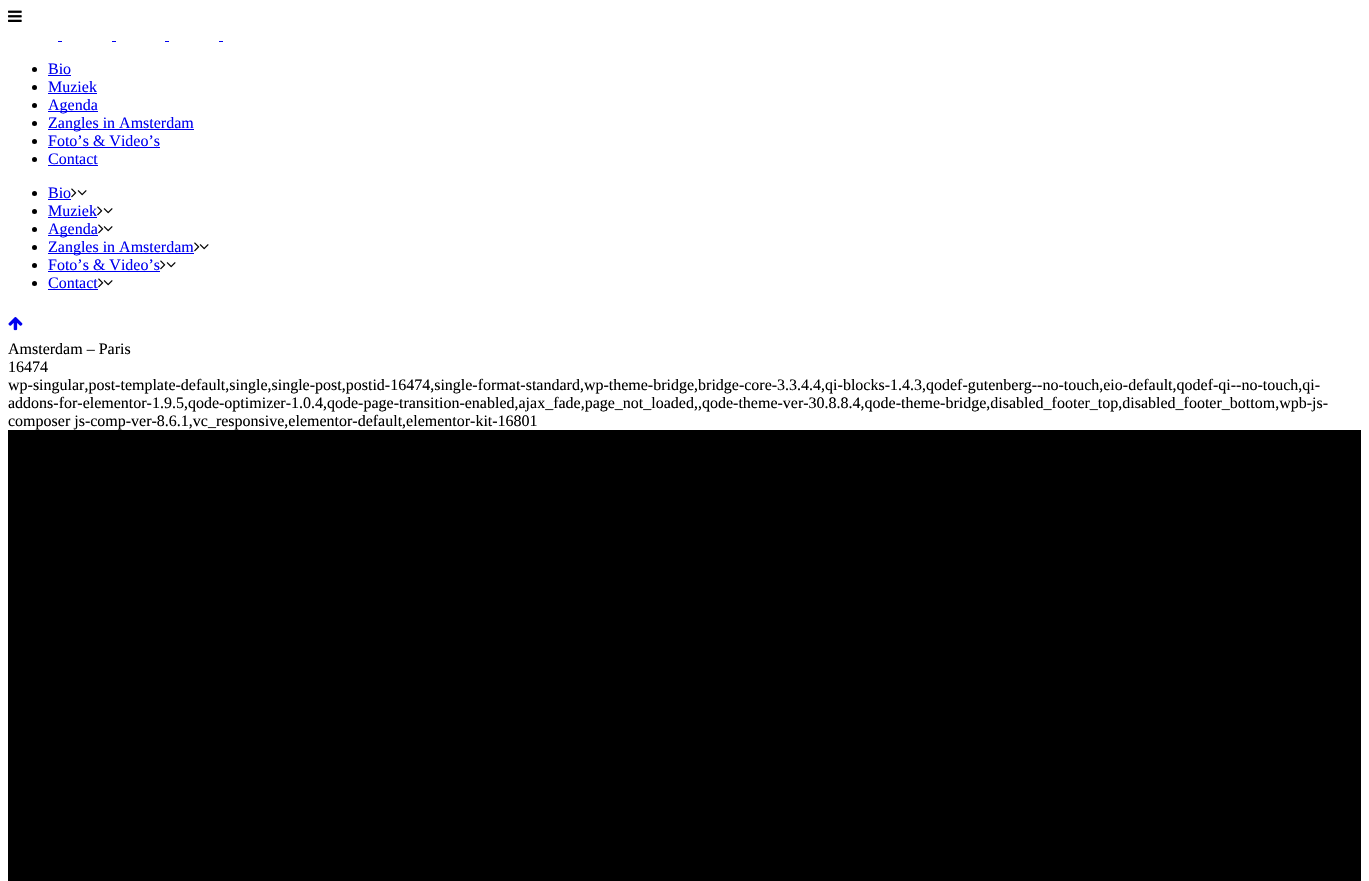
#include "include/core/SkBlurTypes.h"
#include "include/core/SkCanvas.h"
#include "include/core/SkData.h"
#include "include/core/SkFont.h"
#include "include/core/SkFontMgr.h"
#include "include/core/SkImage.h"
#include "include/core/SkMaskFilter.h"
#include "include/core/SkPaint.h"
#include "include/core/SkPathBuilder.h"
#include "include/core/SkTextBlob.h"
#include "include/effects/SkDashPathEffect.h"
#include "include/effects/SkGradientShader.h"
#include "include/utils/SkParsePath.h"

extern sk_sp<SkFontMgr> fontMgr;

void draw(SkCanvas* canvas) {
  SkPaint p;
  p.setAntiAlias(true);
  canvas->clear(SK_ColorWHITE);
  canvas->drawImageRect(SkImages::DeferredFromEncodedData(SkData::MakeFromFileName("images/1.png")), SkRect::MakeLTRB(8, 10, 22, 22), SkSamplingOptions());
  p.setColor(SkColorSetRGB(0, 0, 238));
  canvas->drawRect(SkRect::MakeLTRB(58, 41, 62, 42), p);
  canvas->drawRect(SkRect::MakeLTRB(112, 41, 116, 42), p);
  canvas->drawRect(SkRect::MakeLTRB(165, 41, 169, 42), p);
  canvas->drawRect(SkRect::MakeLTRB(219, 41, 223, 42), p);
  p.setColor(SK_ColorBLACK);
  canvas->drawCircle(34.5f, 69.5f, 2.5f, p);
  p.setColor(SkColorSetRGB(0, 0, 238));
  canvas->drawRect(SkRect::MakeLTRB(48, 75, 71, 76), p);
  p.setColor(SK_ColorBLACK);
  canvas->drawCircle(34.5f, 87.5f, 2.5f, p);
  p.setColor(SkColorSetRGB(0, 0, 238));
  canvas->drawRect(SkRect::MakeLTRB(48, 93, 97, 94), p);
  p.setColor(SK_ColorBLACK);
  canvas->drawCircle(34.5f, 105.5f, 2.5f, p);
  p.setColor(SkColorSetRGB(0, 0, 238));
  canvas->drawRect(SkRect::MakeLTRB(48, 111, 98, 112), p);
  p.setColor(SK_ColorBLACK);
  canvas->drawCircle(34.5f, 123.5f, 2.5f, p);
  p.setColor(SkColorSetRGB(0, 0, 238));
  canvas->drawRect(SkRect::MakeLTRB(48, 129, 194, 130), p);
  p.setColor(SK_ColorBLACK);
  canvas->drawCircle(34.5f, 141.5f, 2.5f, p);
  p.setColor(SkColorSetRGB(0, 0, 238));
  canvas->drawRect(SkRect::MakeLTRB(48, 147, 160, 148), p);
  p.setColor(SK_ColorBLACK);
  canvas->drawCircle(34.5f, 159.5f, 2.5f, p);
  p.setColor(SkColorSetRGB(0, 0, 238));
  canvas->drawRect(SkRect::MakeLTRB(48, 165, 98, 166), p);
  p.setColor(SK_ColorBLACK);
  canvas->drawCircle(34.5f, 193.5f, 2.5f, p);
  p.setColor(SkColorSetRGB(0, 0, 238));
  canvas->drawRect(SkRect::MakeLTRB(48, 199, 71, 200), p);
  canvas->drawImageRect(SkImages::DeferredFromEncodedData(SkData::MakeFromFileName("images/2.png")), SkRect::MakeLTRB(71, 188, 77, 198), SkSamplingOptions());
  canvas->drawImageRect(SkImages::DeferredFromEncodedData(SkData::MakeFromFileName("images/3.png")), SkRect::MakeLTRB(77, 190, 87, 196), SkSamplingOptions());
  p.setColor(SK_ColorBLACK);
  canvas->drawCircle(34.5f, 211.5f, 2.5f, p);
  p.setColor(SkColorSetRGB(0, 0, 238));
  canvas->drawRect(SkRect::MakeLTRB(48, 217, 97, 218), p);
  canvas->drawImageRect(SkImages::DeferredFromEncodedData(SkData::MakeFromFileName("images/2.png")), SkRect::MakeLTRB(97, 206, 103, 216), SkSamplingOptions());
  canvas->drawImageRect(SkImages::DeferredFromEncodedData(SkData::MakeFromFileName("images/3.png")), SkRect::MakeLTRB(103, 208, 113, 214), SkSamplingOptions());
  p.setColor(SK_ColorBLACK);
  canvas->drawCircle(34.5f, 229.5f, 2.5f, p);
  p.setColor(SkColorSetRGB(0, 0, 238));
  canvas->drawRect(SkRect::MakeLTRB(48, 235, 98, 236), p);
  canvas->drawImageRect(SkImages::DeferredFromEncodedData(SkData::MakeFromFileName("images/2.png")), SkRect::MakeLTRB(98, 224, 104, 234), SkSamplingOptions());
  canvas->drawImageRect(SkImages::DeferredFromEncodedData(SkData::MakeFromFileName("images/4.png")), SkRect::MakeLTRB(103, 226, 113, 232), SkSamplingOptions());
  p.setColor(SK_ColorBLACK);
  canvas->drawCircle(34.5f, 247.5f, 2.5f, p);
  p.setColor(SkColorSetRGB(0, 0, 238));
  canvas->drawRect(SkRect::MakeLTRB(48, 253, 194, 254), p);
  canvas->drawImageRect(SkImages::DeferredFromEncodedData(SkData::MakeFromFileName("images/2.png")), SkRect::MakeLTRB(194, 242, 200, 252), SkSamplingOptions());
  canvas->drawImageRect(SkImages::DeferredFromEncodedData(SkData::MakeFromFileName("images/4.png")), SkRect::MakeLTRB(199, 244, 209, 250), SkSamplingOptions());
  p.setColor(SK_ColorBLACK);
  canvas->drawCircle(34.5f, 265.5f, 2.5f, p);
  p.setColor(SkColorSetRGB(0, 0, 238));
  canvas->drawRect(SkRect::MakeLTRB(48, 271, 160, 272), p);
  canvas->drawImageRect(SkImages::DeferredFromEncodedData(SkData::MakeFromFileName("images/2.png")), SkRect::MakeLTRB(160, 260, 166, 270), SkSamplingOptions());
  canvas->drawImageRect(SkImages::DeferredFromEncodedData(SkData::MakeFromFileName("images/3.png")), SkRect::MakeLTRB(166, 262, 176, 268), SkSamplingOptions());
  p.setColor(SK_ColorBLACK);
  canvas->drawCircle(34.5f, 283.5f, 2.5f, p);
  p.setColor(SkColorSetRGB(0, 0, 238));
  canvas->drawRect(SkRect::MakeLTRB(48, 289, 98, 290), p);
  canvas->drawImageRect(SkImages::DeferredFromEncodedData(SkData::MakeFromFileName("images/2.png")), SkRect::MakeLTRB(98, 278, 104, 288), SkSamplingOptions());
  canvas->drawImageRect(SkImages::DeferredFromEncodedData(SkData::MakeFromFileName("images/4.png")), SkRect::MakeLTRB(103, 280, 113, 286), SkSamplingOptions());
  canvas->drawImageRect(SkImages::DeferredFromEncodedData(SkData::MakeFromFileName("images/5.png")), SkRect::MakeLTRB(8, 317, 23, 331), SkSamplingOptions());
  p.setColor(SK_ColorBLACK);
  canvas->drawRect(SkRect::MakeLTRB(8, 430, 1361, 881), p);
  SkFont font1(fontMgr->matchFamilyStyle("Liberation Serif", SkFontStyle::Normal()), 16);
  font1.setSubpixel(true);
  p.setColor(SkColorSetRGB(0, 0, 238));
  canvas->drawString("Bio", 48, 74, font1, p);
  canvas->drawString("Muziek", 48, 92, font1, p);
  canvas->drawString("Agenda", 48, 110, font1, p);
  canvas->drawString("Zangles in Amsterdam", 48, 128, font1, p);
  canvas->drawString("Foto’s & Video’s", 48, 146, font1, p);
  canvas->drawString("Contact", 48, 164, font1, p);
  canvas->drawString("Bio", 48, 198, font1, p);
  canvas->drawString("Muziek", 48, 216, font1, p);
  canvas->drawString("Agenda", 48, 234, font1, p);
  canvas->drawString("Zangles in Amsterdam", 48, 252, font1, p);
  canvas->drawString("Foto’s & Video’s", 48, 270, font1, p);
  canvas->drawString("Contact", 48, 288, font1, p);
  p.setColor(SK_ColorBLACK);
  canvas->drawString("Amsterdam – Paris", 8, 354, font1, p);
  canvas->drawString("16474", 8, 372, font1, p);
  canvas->drawString("wp-singular,post-template-default,single,single-post,postid-16474,single-format-standard,wp-theme-bridge,bridge-core-3.3.4.4,qi-blocks-1.4.3,qodef-gutenberg--no-touch,eio-default,qodef-qi--no-touch,qi-", 8, 390, font1, p);
  canvas->drawString("addons-for-elementor-1.9.5,qode-optimizer-1.0.4,qode-page-transition-enabled,ajax_fade,page_not_loaded,,qode-theme-ver-30.8.8.4,qode-theme-bridge,disabled_footer_top,disabled_footer_bottom,wpb-js-", 8, 408, font1, p);
  canvas->drawString("composer js-comp-ver-8.6.1,vc_responsive,elementor-default,elementor-kit-16801", 8, 426, font1, p);
}
